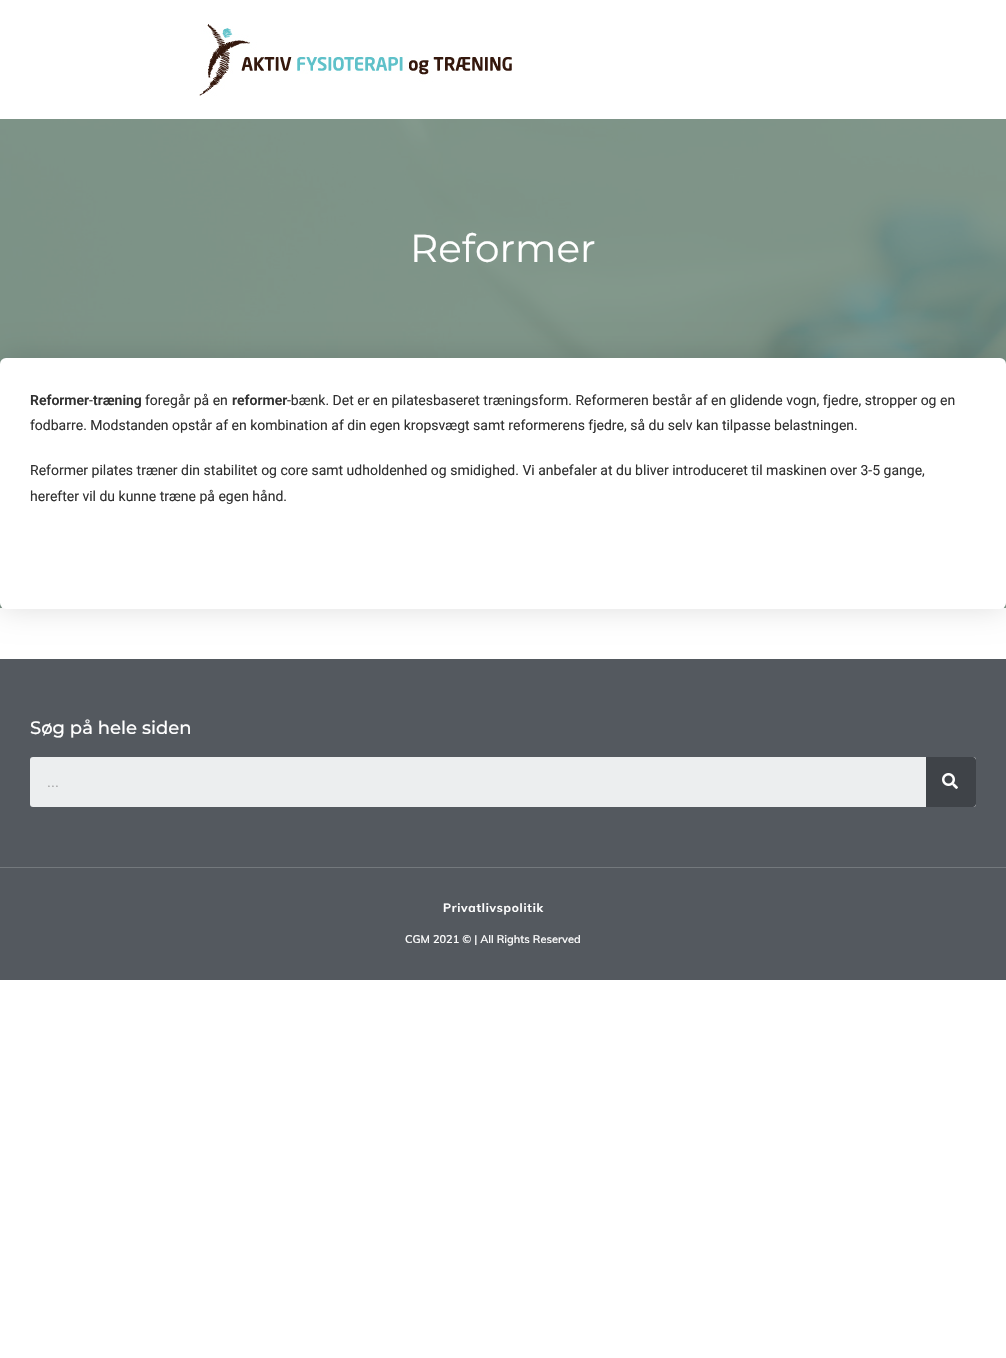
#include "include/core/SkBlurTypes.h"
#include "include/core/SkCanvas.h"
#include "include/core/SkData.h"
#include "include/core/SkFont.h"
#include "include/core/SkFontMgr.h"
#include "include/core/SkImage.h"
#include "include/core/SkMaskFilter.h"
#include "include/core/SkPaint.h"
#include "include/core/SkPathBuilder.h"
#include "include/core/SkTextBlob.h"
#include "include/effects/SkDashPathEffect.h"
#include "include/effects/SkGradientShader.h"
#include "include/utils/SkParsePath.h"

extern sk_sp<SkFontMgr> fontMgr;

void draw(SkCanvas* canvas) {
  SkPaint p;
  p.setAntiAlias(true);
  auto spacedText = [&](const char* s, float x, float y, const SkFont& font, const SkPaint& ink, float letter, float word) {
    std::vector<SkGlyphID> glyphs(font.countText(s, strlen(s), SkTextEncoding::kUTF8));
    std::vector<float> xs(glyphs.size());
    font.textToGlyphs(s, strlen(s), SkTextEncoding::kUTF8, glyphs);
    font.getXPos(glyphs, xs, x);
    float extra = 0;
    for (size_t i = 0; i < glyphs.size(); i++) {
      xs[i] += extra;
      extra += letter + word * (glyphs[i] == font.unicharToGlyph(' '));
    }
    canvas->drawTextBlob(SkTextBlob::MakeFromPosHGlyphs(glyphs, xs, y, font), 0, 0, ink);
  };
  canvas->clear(SK_ColorWHITE);
  canvas->drawImageRect(SkImages::DeferredFromEncodedData(SkData::MakeFromFileName("images/1.png")), SkRect::MakeLTRB(199, 24, 512, 96), SkSamplingOptions());
  canvas->drawImageRect(SkImages::DeferredFromEncodedData(SkData::MakeFromFileName("images/2.png")), SkRect::MakeLTRB(0, 119, 1006, 608), SkSamplingOptions());
  p.setColor(SkColorSetARGB(33, 0, 0, 0));
  p.setMaskFilter(SkMaskFilter::MakeBlur(kNormal_SkBlurStyle, 15));
  canvas->drawRoundRect(SkRect::MakeLTRB(0, 358, 1006, 609), 6, 6, p);
  p.setMaskFilter(nullptr);
  p.setColor(SK_ColorWHITE);
  canvas->drawRoundRect(SkRect::MakeLTRB(0, 358, 1006, 609), 6, 6, p);
  p.setColor(SkColorSetRGB(84, 89, 95));
  canvas->drawRect(SkRect::MakeLTRB(0, 659, 1006, 867), p);
  p.setColor(SkColorSetRGB(116, 121, 125));
  canvas->drawRect(SkRect::MakeLTRB(0, 867, 1006, 868), p);
  p.setColor(SkColorSetRGB(236, 238, 239));
  canvas->drawRoundRect(SkRect::MakeLTRB(30, 757, 976, 807), 3, 3, p);
  p.setColor(SkColorSetRGB(63, 67, 72));
  canvas->drawPath(SkPathBuilder().moveTo(926, 757).lineTo(973, 757).cubicTo(974.5f, 757, 976, 758.5f, 976, 760).lineTo(976, 804).cubicTo(976, 805.5f, 974.5f, 807, 973, 807).lineTo(926, 807).close().detach(), p);
  canvas->drawImageRect(SkImages::DeferredFromEncodedData(SkData::MakeFromFileName("images/3.png")), SkRect::MakeLTRB(942, 773, 958, 789), SkSamplingOptions());
  p.setColor(SkColorSetRGB(84, 89, 95));
  canvas->drawRect(SkRect::MakeLTRB(0, 868, 1006, 980), p);
  SkFont font1(fontMgr->matchFamilyStyle("Montserrat", SkFontStyle::Normal()), 39);
  font1.setSubpixel(true);
  p.setColor(SK_ColorWHITE);
  canvas->drawString("Reformer", 410, 262, font1, p);
  SkFont font2(fontMgr->matchFamilyStyle("Roboto", SkFontStyle(600, SkFontStyle::kNormal_Width, SkFontStyle::kUpright_Slant)), 14);
  font2.setSubpixel(true);
  p.setColor(SkColorSetRGB(49, 49, 49));
  canvas->drawString("Reformer", 30, 405, font2, p);
  SkFont font3(fontMgr->matchFamilyStyle("Roboto", SkFontStyle::Normal()), 14);
  font3.setSubpixel(true);
  canvas->drawString("-", 89, 405, font3, p);
  canvas->drawString("træning", 93, 405, font2, p);
  canvas->drawString("foregår på en", 145, 405, font3, p);
  canvas->drawString("reformer", 232, 405, font2, p);
  canvas->drawString("-bænk. Det er en pilatesbaseret træningsform. Reformeren består af en glidende vogn, fjedre, stropper og en", 287, 405, font3, p);
  canvas->drawString("fodbarre. Modstanden opstår af en kombination af din egen kropsvægt samt reformerens fjedre, så du selv kan tilpasse belastningen.", 30, 430, font3, p);
  canvas->drawString("Reformer pilates træner din stabilitet og core samt udholdenhed og smidighed. Vi anbefaler at du bliver introduceret til maskinen over 3-5 gange,", 30, 475, font3, p);
  canvas->drawString("herefter vil du kunne træne på egen hånd.", 30, 501, font3, p);
  SkFont font4(fontMgr->matchFamilyStyle("Montserrat", SkFontStyle(500, SkFontStyle::kNormal_Width, SkFontStyle::kUpright_Slant)), 18);
  font4.setSubpixel(true);
  p.setColor(SK_ColorWHITE);
  canvas->drawString("Søg på hele siden", 30, 734, font4, p);
  SkFont font5(fontMgr->matchFamilyStyle("Roboto", SkFontStyle::Normal()), 15);
  font5.setSubpixel(true);
  p.setColor(SkColorSetRGB(168, 168, 169));
  canvas->drawString("...", 47, 787, font5, p);
  SkFont font6(fontMgr->matchFamilyStyle("Muli", SkFontStyle::Bold()), 12);
  font6.setSubpixel(true);
  p.setColor(SK_ColorWHITE);
  spacedText("Privatlivspolitik", 443, 912, font6, p, 0.75f, 0);
  SkFont font7(fontMgr->matchFamilyStyle("Muli", SkFontStyle(600, SkFontStyle::kNormal_Width, SkFontStyle::kUpright_Slant)), 11);
  font7.setSubpixel(true);
  canvas->drawString("CGM 2021 © | All Rights Reserved", 405, 943, font7, p);
}
